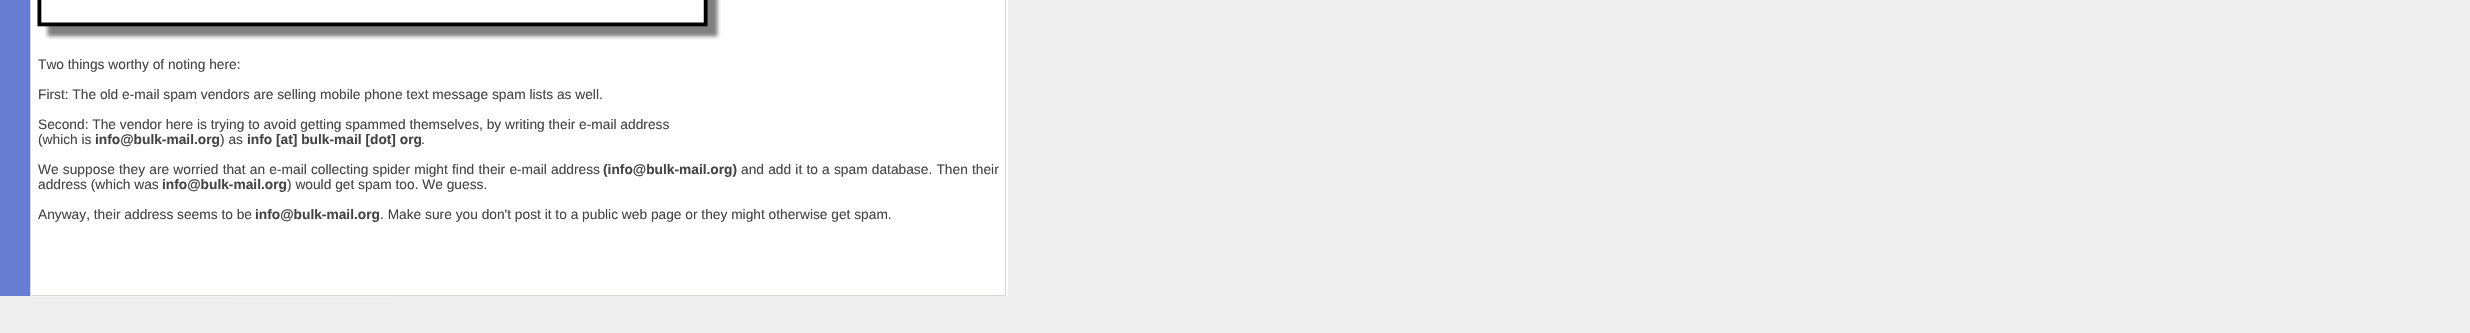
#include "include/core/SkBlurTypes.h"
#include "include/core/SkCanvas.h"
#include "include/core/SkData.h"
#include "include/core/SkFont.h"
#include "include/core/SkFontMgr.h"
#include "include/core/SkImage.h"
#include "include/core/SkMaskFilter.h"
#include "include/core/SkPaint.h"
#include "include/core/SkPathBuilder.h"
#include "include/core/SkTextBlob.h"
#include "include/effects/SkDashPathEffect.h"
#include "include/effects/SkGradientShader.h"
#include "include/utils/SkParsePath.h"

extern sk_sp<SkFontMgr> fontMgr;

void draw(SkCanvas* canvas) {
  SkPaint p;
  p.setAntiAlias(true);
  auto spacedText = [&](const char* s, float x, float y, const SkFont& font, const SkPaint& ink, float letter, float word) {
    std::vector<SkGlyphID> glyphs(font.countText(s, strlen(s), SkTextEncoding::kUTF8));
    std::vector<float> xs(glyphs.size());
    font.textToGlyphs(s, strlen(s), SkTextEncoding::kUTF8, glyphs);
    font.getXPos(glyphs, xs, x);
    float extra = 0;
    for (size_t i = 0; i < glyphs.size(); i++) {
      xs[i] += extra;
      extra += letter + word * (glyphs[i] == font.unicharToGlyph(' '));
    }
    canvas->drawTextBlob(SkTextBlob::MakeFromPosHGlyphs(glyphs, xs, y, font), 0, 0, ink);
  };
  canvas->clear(SkColorSetRGB(238, 238, 238));
  p.setColor(SkColorSetRGB(102, 125, 209));
  canvas->drawRect(SkRect::MakeLTRB(0, 0, 30, 296), p);
  p.setColor(SK_ColorWHITE);
  canvas->drawRect(SkRect::MakeLTRB(1006, 0, 1008, 296), p);
  canvas->drawImageRect(SkImages::DeferredFromEncodedData(SkData::MakeFromFileName("images/1.png")), SkRect::MakeLTRB(30, 296, 655, 297), SkSamplingOptions());
  canvas->drawRect(SkRect::MakeLTRB(31, 0, 1005, 295), p);
  p.setColor(SkColorSetRGB(217, 214, 209));
  canvas->drawRect(SkRect::MakeLTRB(1005, 0, 1006, 296), p);
  canvas->drawRect(SkRect::MakeLTRB(30, 295, 1006, 296), p);
  canvas->drawRect(SkRect::MakeLTRB(30, 0, 31, 296), p);
  canvas->drawImageRect(SkImages::DeferredFromEncodedData(SkData::MakeFromFileName("images/2.png")), SkRect::MakeLTRB(37, 0, 721, 40), SkSamplingOptions());
  SkFont font1(fontMgr->matchFamilyStyle("Liberation Sans", SkFontStyle::Normal()), 13.75f);
  font1.setSubpixel(true);
  p.setColor(SkColorSetRGB(68, 68, 68));
  canvas->drawString("Two things worthy of noting here:", 38, 69, font1, p);
  canvas->drawString("First: The old e-mail spam vendors are selling mobile phone text message spam lists as well.", 38, 99, font1, p);
  canvas->drawString("Second: The vendor here is trying to avoid getting spammed themselves, by writing their e-mail address", 38, 129, font1, p);
  canvas->drawString("(which is", 38, 144, font1, p);
  SkFont font2(fontMgr->matchFamilyStyle("Liberation Sans", SkFontStyle::Bold()), 13.75f);
  font2.setSubpixel(true);
  canvas->drawString("info@bulk-mail.org", 95, 144, font2, p);
  canvas->drawString(") as", 220, 144, font1, p);
  canvas->drawString("info [at] bulk-mail [dot] org", 247, 144, font2, p);
  canvas->drawString(".", 421, 144, font1, p);
  spacedText("We suppose they are worried that an e-mail collecting spider might find their e-mail address", 38, 174, font1, p, 0, 0.4f);
  canvas->drawString("(info@bulk-mail.org)", 603, 174, font2, p);
  spacedText("and add it to a spam database. Then their", 741, 174, font1, p, 0, 0.4f);
  canvas->drawString("address (which was", 38, 189, font1, p);
  canvas->drawString("info@bulk-mail.org", 162, 189, font2, p);
  canvas->drawString(") would get spam too. We guess.", 287, 189, font1, p);
  canvas->drawString("Anyway, their address seems to be", 38, 219, font1, p);
  canvas->drawString("info@bulk-mail.org", 255, 219, font2, p);
  canvas->drawString(". Make sure you don't post it to a public web page or they might otherwise get spam.", 380, 219, font1, p);
}
